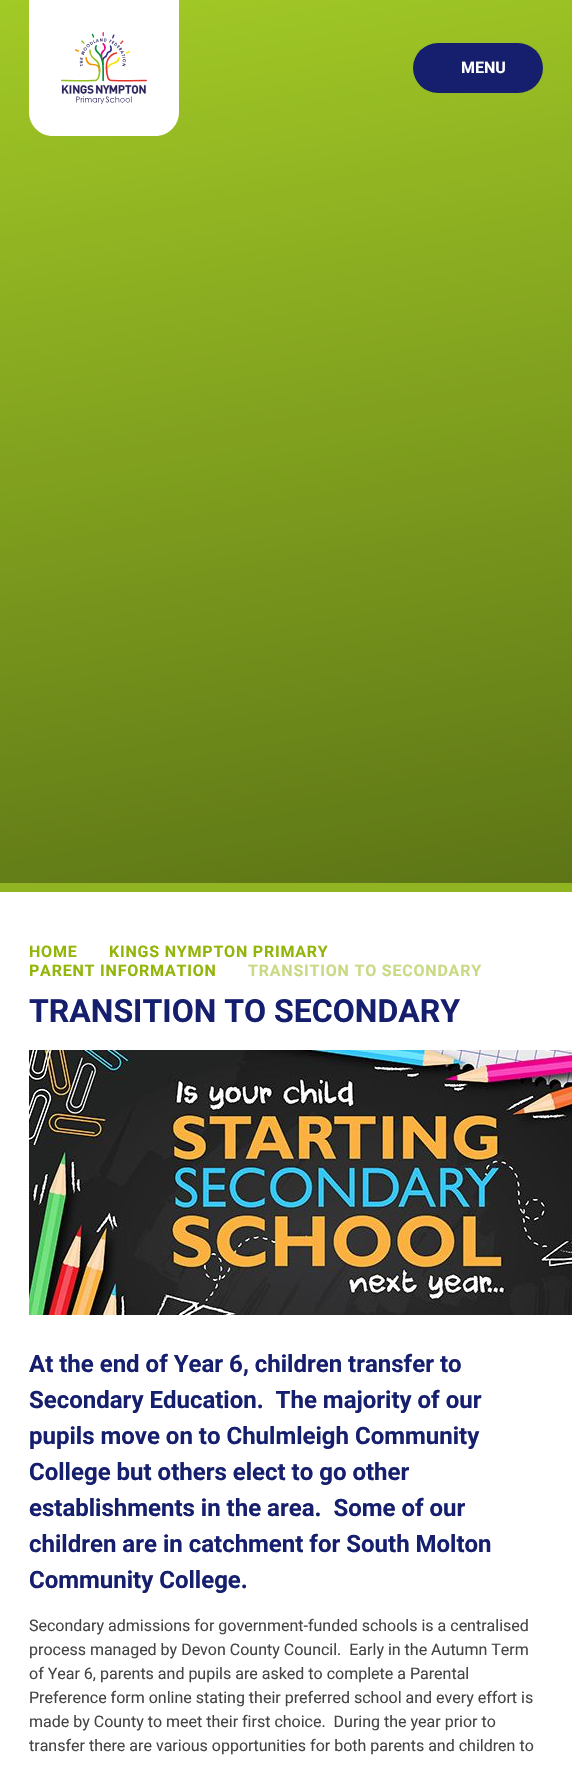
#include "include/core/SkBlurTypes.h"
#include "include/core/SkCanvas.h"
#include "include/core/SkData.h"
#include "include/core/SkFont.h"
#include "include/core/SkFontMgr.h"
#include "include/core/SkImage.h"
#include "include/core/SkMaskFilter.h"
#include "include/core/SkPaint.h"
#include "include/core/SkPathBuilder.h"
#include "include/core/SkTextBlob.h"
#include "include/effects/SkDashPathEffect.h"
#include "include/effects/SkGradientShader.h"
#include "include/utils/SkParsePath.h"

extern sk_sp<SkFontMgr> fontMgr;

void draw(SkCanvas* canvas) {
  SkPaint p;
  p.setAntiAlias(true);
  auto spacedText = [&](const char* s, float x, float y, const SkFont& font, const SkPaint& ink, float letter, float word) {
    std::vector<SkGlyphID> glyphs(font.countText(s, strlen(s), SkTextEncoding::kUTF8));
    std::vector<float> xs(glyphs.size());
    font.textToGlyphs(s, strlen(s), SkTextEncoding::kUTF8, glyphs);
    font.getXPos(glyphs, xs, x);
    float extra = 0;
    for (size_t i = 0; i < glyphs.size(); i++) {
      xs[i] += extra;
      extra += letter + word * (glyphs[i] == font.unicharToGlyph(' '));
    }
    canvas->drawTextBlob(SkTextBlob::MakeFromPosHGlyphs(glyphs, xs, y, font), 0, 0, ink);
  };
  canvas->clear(SK_ColorWHITE);
  {
    const SkColor colors[] = {SkColorSetRGB(162, 202, 38), SkColorSetRGB(93, 117, 22)};
    const float stops[] = {0, 1};
    const SkPoint ends[] = {{202, -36}, {370, 919}};
    p.setShader(SkGradientShader::MakeLinear(ends, colors, stops, 2, SkTileMode::kClamp));
    p.setAlpha(255);
  }
  canvas->drawRect(SkRect::MakeLTRB(0, 0, 572, 883), p);
  p.setShader(nullptr);
  p.setColor(SK_ColorWHITE);
  canvas->drawPath(SkPathBuilder().moveTo(29, 0).lineTo(179, 0).lineTo(179, 112).cubicTo(179, 125.5f, 168.5f, 136, 155, 136).lineTo(53, 136).cubicTo(39.5f, 136, 29, 125.5f, 29, 112).close().detach(), p);
  canvas->drawImageRect(SkImages::DeferredFromEncodedData(SkData::MakeFromFileName("images/1.png")), SkRect::MakeLTRB(61, 32, 147, 104), SkSamplingOptions());
  p.setColor(SkColorSetRGB(21, 31, 109));
  canvas->drawRoundRect(SkRect::MakeLTRB(413, 43, 543, 93), 25, 25, p);
  p.setColor(SkColorSetRGB(145, 181, 34));
  canvas->drawRect(SkRect::MakeLTRB(0, 883, 572, 892), p);
  canvas->drawImageRect(SkImages::DeferredFromEncodedData(SkData::MakeFromFileName("images/2.png")), SkRect::MakeLTRB(29, 1050, 572, 1315), SkSamplingOptions());
  SkFont font1(fontMgr->matchFamilyStyle("Roboto", SkFontStyle::Bold()), 16);
  font1.setSubpixel(true);
  p.setColor(SK_ColorWHITE);
  canvas->drawString("MENU", 461, 73, font1, p);
  p.setColor(SkColorSetRGB(145, 181, 8));
  spacedText("HOME", 29, 957, font1, p, 0.8f, 0);
  spacedText("KINGS NYMPTON PRIMARY", 109, 957, font1, p, 0.8f, 0);
  spacedText("PARENT INFORMATION", 29, 976, font1, p, 0.8f, 0);
  p.setColor(SkColorSetRGB(200, 218, 132));
  spacedText("TRANSITION TO SECONDARY", 248, 976, font1, p, 0.8f, 0);
  SkFont font2(fontMgr->matchFamilyStyle("Roboto", SkFontStyle::Bold()), 32);
  font2.setSubpixel(true);
  p.setColor(SkColorSetRGB(21, 31, 109));
  canvas->drawString("TRANSITION TO SECONDARY", 29, 1022, font2, p);
  SkFont font3(fontMgr->matchFamilyStyle("Roboto", SkFontStyle::Bold()), 24);
  font3.setSubpixel(true);
  canvas->drawString("At the end of Year 6, children transfer to", 29, 1372, font3, p);
  canvas->drawString("Secondary Education.  The majority of our", 29, 1408, font3, p);
  canvas->drawString("pupils move on to Chulmleigh Community", 29, 1444, font3, p);
  canvas->drawString("College but others elect to go other", 29, 1480, font3, p);
  canvas->drawString("establishments in the area.  Some of our", 29, 1516, font3, p);
  canvas->drawString("children are in catchment for South Molton", 29, 1552, font3, p);
  canvas->drawString("Community College.", 29, 1588, font3, p);
  SkFont font4(fontMgr->matchFamilyStyle("Roboto", SkFontStyle::Normal()), 16);
  font4.setSubpixel(true);
  p.setColor(SkColorSetRGB(68, 68, 68));
  canvas->drawString("Secondary admissions for government-funded schools is a centralised", 29, 1631, font4, p);
  canvas->drawString("process managed by Devon County Council.  Early in the Autumn Term", 29, 1655, font4, p);
  canvas->drawString("of Year 6, parents and pupils are asked to complete a Parental", 29, 1679, font4, p);
  canvas->drawString("Preference form online stating their preferred school and every effort is", 29, 1703, font4, p);
  canvas->drawString("made by County to meet their first choice.  During the year prior to", 29, 1727, font4, p);
  canvas->drawString("transfer there are various opportunities for both parents and children to", 29, 1751, font4, p);
}
